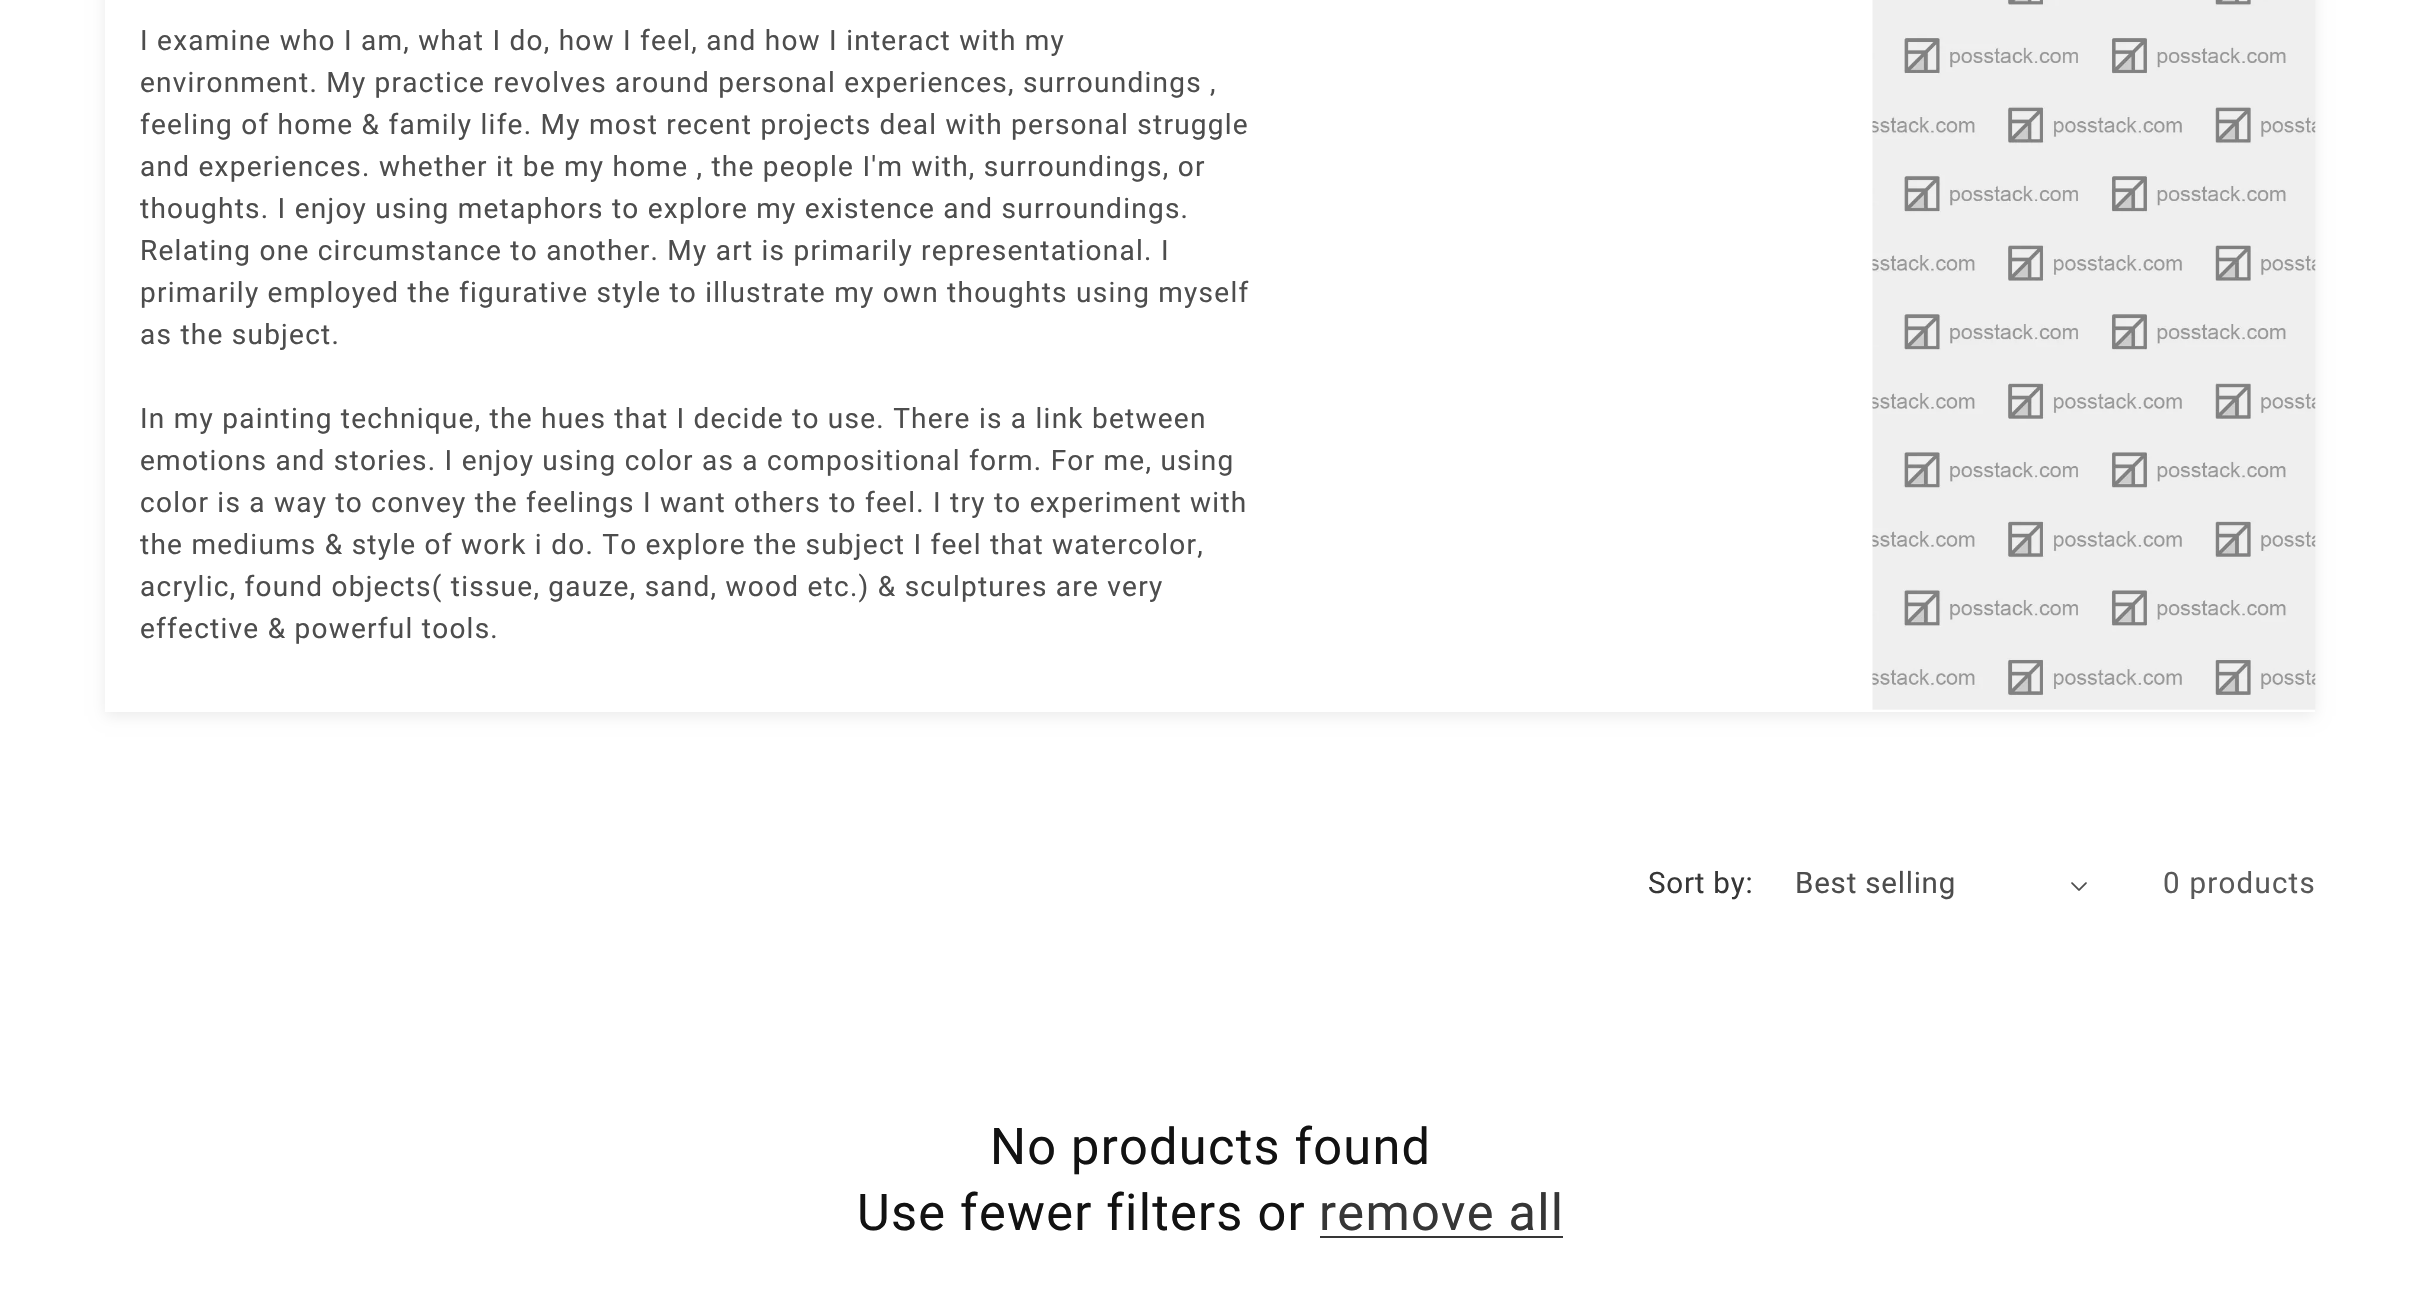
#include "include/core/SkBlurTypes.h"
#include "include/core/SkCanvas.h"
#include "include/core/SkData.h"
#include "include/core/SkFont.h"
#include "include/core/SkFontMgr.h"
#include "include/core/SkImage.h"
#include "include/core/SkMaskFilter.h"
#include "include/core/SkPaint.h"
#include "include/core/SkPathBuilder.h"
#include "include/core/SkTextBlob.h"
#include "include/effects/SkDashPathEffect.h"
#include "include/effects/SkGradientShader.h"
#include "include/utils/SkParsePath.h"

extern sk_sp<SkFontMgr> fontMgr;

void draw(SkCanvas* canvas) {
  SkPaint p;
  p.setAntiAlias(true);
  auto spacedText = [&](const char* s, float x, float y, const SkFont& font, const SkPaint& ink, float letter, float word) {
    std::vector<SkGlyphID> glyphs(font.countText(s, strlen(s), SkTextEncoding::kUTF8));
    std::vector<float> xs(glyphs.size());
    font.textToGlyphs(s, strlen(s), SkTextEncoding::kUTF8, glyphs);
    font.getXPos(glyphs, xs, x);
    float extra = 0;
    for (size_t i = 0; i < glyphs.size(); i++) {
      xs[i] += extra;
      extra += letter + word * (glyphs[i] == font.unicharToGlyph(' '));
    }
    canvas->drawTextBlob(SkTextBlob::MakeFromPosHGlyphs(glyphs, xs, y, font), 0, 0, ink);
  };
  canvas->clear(SK_ColorWHITE);
  canvas->save();
  canvas->clipPath(SkPathBuilder(SkPathFillType::kEvenOdd).moveTo(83, 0).lineTo(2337, 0).lineTo(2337, 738).lineTo(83, 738).close().moveTo(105, -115).lineTo(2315, -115).lineTo(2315, 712).lineTo(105, 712).close().detach(), true);
  p.setColor(SkColorSetARGB(20, 0, 0, 0));
  p.setMaskFilter(SkMaskFilter::MakeBlur(kNormal_SkBlurStyle, 7));
  canvas->drawRect(SkRect::MakeLTRB(105, -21, 2315, 716), p);
  p.setMaskFilter(nullptr);
  canvas->restore();
  canvas->drawImageRect(SkImages::DeferredFromEncodedData(SkData::MakeFromFileName("images/1.png")), SkRect::MakeLTRB(1872, 0, 2316, 710), SkSamplingOptions());
  canvas->drawImageRect(SkImages::DeferredFromEncodedData(SkData::MakeFromFileName("images/2.png")), SkRect::MakeLTRB(2071, 882, 2087, 891), SkSamplingOptions());
  p.setColor(SkColorSetRGB(54, 54, 54));
  canvas->drawRect(SkRect::MakeLTRB(1320, 1236, 1563, 1238), p);
  SkFont font1(fontMgr->matchFamilyStyle("Roboto", SkFontStyle::Normal()), 28);
  font1.setSubpixel(true);
  p.setColor(SkColorSetRGB(77, 77, 77));
  spacedText("I examine who I am, what I do, how I feel, and how I interact with my", 140, 50, font1, p, 1.25f, 0);
  spacedText("environment. My practice revolves around personal experiences, surroundings ,", 140, 92, font1, p, 1.25f, 0);
  spacedText("feeling of home & family life. My most recent projects deal with personal struggle", 140, 134, font1, p, 1.25f, 0);
  spacedText("and experiences. whether it be my home , the people I'm with, surroundings, or", 140, 176, font1, p, 1.25f, 0);
  spacedText("thoughts. I enjoy using metaphors to explore my existence and surroundings.", 140, 218, font1, p, 1.25f, 0);
  spacedText("Relating one circumstance to another. My art is primarily representational. I", 140, 260, font1, p, 1.25f, 0);
  spacedText("primarily employed the figurative style to illustrate my own thoughts using myself", 140, 302, font1, p, 1.25f, 0);
  spacedText("as the subject.", 140, 344, font1, p, 1.25f, 0);
  spacedText("In my painting technique, the hues that I decide to use. There is a link between", 140, 428, font1, p, 1.25f, 0);
  spacedText("emotions and stories. I enjoy using color as a compositional form. For me, using", 140, 470, font1, p, 1.25f, 0);
  spacedText("color is a way to convey the feelings I want others to feel. I try to experiment with", 140, 512, font1, p, 1.25f, 0);
  spacedText("the mediums & style of work i do. To explore the subject I feel that watercolor,", 140, 554, font1, p, 1.25f, 0);
  spacedText("acrylic, found objects( tissue, gauze, sand, wood etc.) & sculptures are very", 140, 596, font1, p, 1.25f, 0);
  spacedText("effective & powerful tools.", 140, 638, font1, p, 1.25f, 0);
  SkFont font2(fontMgr->matchFamilyStyle("Roboto", SkFontStyle::Normal()), 29.5f);
  font2.setSubpixel(true);
  p.setColor(SkColorSetRGB(54, 54, 54));
  spacedText("Sort by:", 1648, 893, font2, p, 0.8f, 0);
  p.setColor(SkColorSetRGB(77, 77, 77));
  spacedText("Best selling", 1795, 893, font2, p, 0.8f, 0);
  p.setColor(SkColorSetRGB(89, 89, 89));
  spacedText("0 products", 2163, 893, font2, p, 1.25f, 0);
  SkFont font3(fontMgr->matchFamilyStyle("Roboto", SkFontStyle::Normal()), 50.5f);
  font3.setSubpixel(true);
  p.setColor(SkColorSetRGB(18, 18, 18));
  spacedText("No products found", 990, 1164, font3, p, 1.25f, 0);
  spacedText("Use fewer filters or", 857, 1230, font3, p, 1.25f, 0);
  p.setColor(SkColorSetRGB(54, 54, 54));
  spacedText("remove all", 1319, 1230, font3, p, 1.25f, 0);
}
